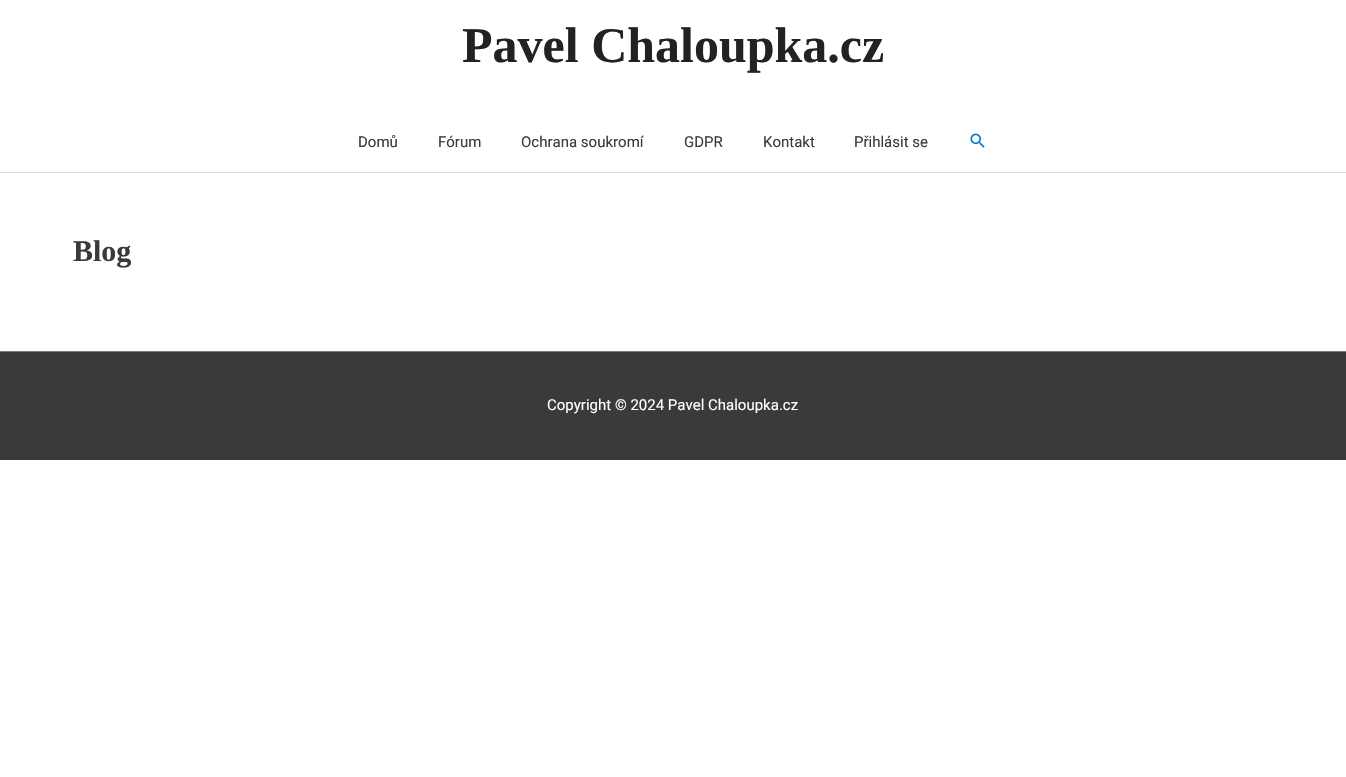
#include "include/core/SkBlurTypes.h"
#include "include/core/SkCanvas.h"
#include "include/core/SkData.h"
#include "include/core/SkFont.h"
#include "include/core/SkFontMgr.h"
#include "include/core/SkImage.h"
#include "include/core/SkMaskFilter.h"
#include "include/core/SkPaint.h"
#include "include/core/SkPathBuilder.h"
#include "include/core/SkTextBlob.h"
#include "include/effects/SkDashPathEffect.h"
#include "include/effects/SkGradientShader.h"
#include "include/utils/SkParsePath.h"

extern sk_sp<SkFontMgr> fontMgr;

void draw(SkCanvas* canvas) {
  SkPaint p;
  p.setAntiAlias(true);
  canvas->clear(SK_ColorWHITE);
  p.setColor(SkColorSetRGB(221, 221, 221));
  canvas->drawRect(SkRect::MakeLTRB(0, 172, 1346, 173), p);
  canvas->drawImageRect(SkImages::DeferredFromEncodedData(SkData::MakeFromFileName("images/1.png")), SkRect::MakeLTRB(970, 133, 985, 148), SkSamplingOptions());
  p.setColor(SkColorSetRGB(122, 122, 122));
  canvas->drawRect(SkRect::MakeLTRB(0, 351, 1346, 352), p);
  p.setColor(SkColorSetRGB(58, 58, 58));
  canvas->drawRect(SkRect::MakeLTRB(0, 352, 1346, 460), p);
  SkFont font1(fontMgr->matchFamilyStyle("Liberation Serif", SkFontStyle::Bold()), 50);
  font1.setSubpixel(true);
  p.setColor(SkColorSetRGB(34, 34, 34));
  canvas->drawString("Pavel Chaloupka.cz", 462, 62, font1, p);
  SkFont font2(fontMgr->matchFamilyStyle("Roboto", SkFontStyle::Normal()), 15);
  font2.setSubpixel(true);
  p.setColor(SkColorSetRGB(58, 58, 58));
  canvas->drawString("Domů", 358, 147, font2, p);
  canvas->drawString("Fórum", 438, 147, font2, p);
  canvas->drawString("Ochrana soukromí", 521, 147, font2, p);
  canvas->drawString("GDPR", 684, 147, font2, p);
  canvas->drawString("Kontakt", 763, 147, font2, p);
  canvas->drawString("Přihlásit se", 854, 147, font2, p);
  SkFont font3(fontMgr->matchFamilyStyle("Liberation Serif", SkFontStyle::Bold()), 30);
  font3.setSubpixel(true);
  canvas->drawString("Blog", 73, 261, font3, p);
  p.setColor(SK_ColorWHITE);
  canvas->drawString("Copyright © 2024 Pavel Chaloupka.cz", 547, 410, font2, p);
}
